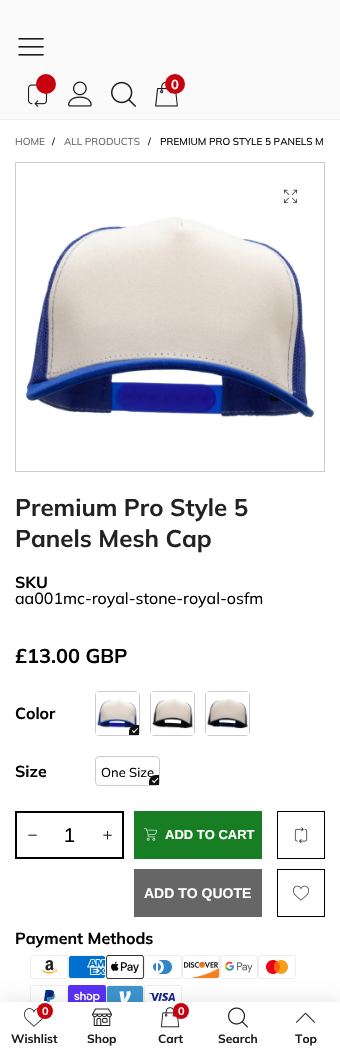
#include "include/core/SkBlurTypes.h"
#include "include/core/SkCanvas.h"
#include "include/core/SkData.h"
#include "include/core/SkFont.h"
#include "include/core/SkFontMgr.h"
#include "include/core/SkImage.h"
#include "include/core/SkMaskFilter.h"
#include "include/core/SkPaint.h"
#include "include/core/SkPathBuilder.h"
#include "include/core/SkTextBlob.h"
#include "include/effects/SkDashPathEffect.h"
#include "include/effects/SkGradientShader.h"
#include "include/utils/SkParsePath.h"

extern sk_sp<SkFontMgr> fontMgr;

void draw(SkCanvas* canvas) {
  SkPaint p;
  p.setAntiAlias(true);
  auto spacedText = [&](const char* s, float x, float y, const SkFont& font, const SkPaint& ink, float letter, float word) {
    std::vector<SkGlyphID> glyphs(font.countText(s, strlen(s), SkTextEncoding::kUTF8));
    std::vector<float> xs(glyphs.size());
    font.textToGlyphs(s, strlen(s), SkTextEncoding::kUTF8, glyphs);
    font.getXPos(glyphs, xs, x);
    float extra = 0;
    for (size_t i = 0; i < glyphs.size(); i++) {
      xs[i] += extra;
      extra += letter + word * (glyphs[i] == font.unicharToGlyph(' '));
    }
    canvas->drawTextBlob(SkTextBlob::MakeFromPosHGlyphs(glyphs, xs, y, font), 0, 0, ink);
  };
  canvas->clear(SK_ColorWHITE);
  p.setColor(SkColorSetRGB(250, 250, 250));
  canvas->drawRect(SkRect::MakeLTRB(0, 0, 340, 119), p);
  p.setColor(SkColorSetRGB(238, 238, 238));
  canvas->drawRect(SkRect::MakeLTRB(0, 119, 340, 120), p);
  canvas->drawImageRect(SkImages::DeferredFromEncodedData(SkData::MakeFromFileName("images/1.png")), SkRect::MakeLTRB(18, 38, 44, 56), SkSamplingOptions());
  canvas->drawImageRect(SkImages::DeferredFromEncodedData(SkData::MakeFromFileName("images/2.png")), SkRect::MakeLTRB(27, 84, 48, 107), SkSamplingOptions());
  p.setColor(SkColorSetRGB(199, 2, 15));
  canvas->drawCircle(46, 84, 10, p);
  canvas->drawImageRect(SkImages::DeferredFromEncodedData(SkData::MakeFromFileName("images/3.png")), SkRect::MakeLTRB(68, 81, 92, 107), SkSamplingOptions());
  canvas->drawImageRect(SkImages::DeferredFromEncodedData(SkData::MakeFromFileName("images/4.png")), SkRect::MakeLTRB(111, 81, 136, 107), SkSamplingOptions());
  canvas->drawImageRect(SkImages::DeferredFromEncodedData(SkData::MakeFromFileName("images/5.png")), SkRect::MakeLTRB(155, 81, 178, 107), SkSamplingOptions());
  canvas->drawCircle(175, 84, 10, p);
  p.setStyle(SkPaint::kStroke_Style);
  p.setStrokeWidth(1);
  p.setColor(SkColorSetRGB(204, 204, 204));
  canvas->drawRect(SkRect::MakeLTRB(15.5f, 162.5f, 324.5f, 471.5f), p);
  canvas->drawImageRect(SkImages::DeferredFromEncodedData(SkData::MakeFromFileName("images/6.png")), SkRect::MakeLTRB(25, 216, 315, 420), SkSamplingOptions());
  canvas->drawImageRect(SkImages::DeferredFromEncodedData(SkData::MakeFromFileName("images/7.png")), SkRect::MakeLTRB(284, 189, 297, 203), SkSamplingOptions());
  canvas->drawRoundRect(SkRect::MakeLTRB(95.5f, 691.5f, 139.5f, 735.5f), 3.5f, 3.5f, p);
  canvas->drawImageRect(SkImages::DeferredFromEncodedData(SkData::MakeFromFileName("images/8.png")), SkRect::MakeLTRB(96, 692, 139, 735), SkSamplingOptions());
  p.setStyle(SkPaint::kFill_Style);
  p.setColor(SkColorSetRGB(17, 17, 17));
  canvas->drawPath(SkPathBuilder().moveTo(136, 725).lineTo(139, 725).lineTo(139, 735).lineTo(129, 735).lineTo(129, 732).cubicTo(129, 728, 132, 725, 136, 725).close().detach(), p);
  p.setColor(SK_ColorWHITE);
  canvas->drawPath(SkPathBuilder().moveTo(133, 732).lineTo(137.5f, 728).lineTo(138, 728.5f).lineTo(134, 733).close().detach(), p);
  p.setStyle(SkPaint::kStroke_Style);
  p.setColor(SkColorSetRGB(204, 204, 204));
  canvas->drawRoundRect(SkRect::MakeLTRB(150.5f, 691.5f, 194.5f, 735.5f), 3.5f, 3.5f, p);
  canvas->drawImageRect(SkImages::DeferredFromEncodedData(SkData::MakeFromFileName("images/9.png")), SkRect::MakeLTRB(151, 692, 194, 735), SkSamplingOptions());
  canvas->drawRoundRect(SkRect::MakeLTRB(205.5f, 691.5f, 249.5f, 735.5f), 3.5f, 3.5f, p);
  canvas->drawImageRect(SkImages::DeferredFromEncodedData(SkData::MakeFromFileName("images/10.png")), SkRect::MakeLTRB(206, 692, 249, 735), SkSamplingOptions());
  canvas->drawRoundRect(SkRect::MakeLTRB(95.5f, 756.5f, 159.5f, 785.5f), 3.5f, 3.5f, p);
  p.setStrokeWidth(2);
  p.setColor(SK_ColorBLACK);
  canvas->drawRect(SkRect::MakeLTRB(16, 812, 123, 858), p);
  canvas->drawImageRect(SkImages::DeferredFromEncodedData(SkData::MakeFromFileName("images/11.png")), SkRect::MakeLTRB(28, 834, 37, 836), SkSamplingOptions());
  canvas->drawImageRect(SkImages::DeferredFromEncodedData(SkData::MakeFromFileName("images/12.png")), SkRect::MakeLTRB(103, 830, 112, 840), SkSamplingOptions());
  p.setStyle(SkPaint::kFill_Style);
  p.setColor(SkColorSetRGB(23, 126, 36));
  canvas->drawRect(SkRect::MakeLTRB(134, 811, 262, 859), p);
  canvas->drawImageRect(SkImages::DeferredFromEncodedData(SkData::MakeFromFileName("images/13.png")), SkRect::MakeLTRB(144, 828, 157, 841), SkSamplingOptions());
  p.setStyle(SkPaint::kStroke_Style);
  p.setStrokeWidth(1);
  p.setColor(SK_ColorBLACK);
  canvas->drawRect(SkRect::MakeLTRB(277.5f, 811.5f, 324.5f, 858.5f), p);
  canvas->drawImageRect(SkImages::DeferredFromEncodedData(SkData::MakeFromFileName("images/14.png")), SkRect::MakeLTRB(294, 827, 308, 844), SkSamplingOptions());
  p.setStyle(SkPaint::kFill_Style);
  p.setColor(SkColorSetRGB(102, 102, 102));
  canvas->drawRect(SkRect::MakeLTRB(134, 869, 262, 917), p);
  p.setStyle(SkPaint::kStroke_Style);
  p.setColor(SK_ColorBLACK);
  canvas->drawRect(SkRect::MakeLTRB(277.5f, 869.5f, 324.5f, 916.5f), p);
  canvas->drawImageRect(SkImages::DeferredFromEncodedData(SkData::MakeFromFileName("images/15.png")), SkRect::MakeLTRB(293, 885, 309, 901), SkSamplingOptions());
  canvas->drawImageRect(SkImages::DeferredFromEncodedData(SkData::MakeFromFileName("images/16.png")), SkRect::MakeLTRB(30, 955, 68, 979), SkSamplingOptions());
  canvas->drawImageRect(SkImages::DeferredFromEncodedData(SkData::MakeFromFileName("images/17.png")), SkRect::MakeLTRB(68, 955, 106, 979), SkSamplingOptions());
  canvas->drawImageRect(SkImages::DeferredFromEncodedData(SkData::MakeFromFileName("images/18.png")), SkRect::MakeLTRB(106, 955, 144, 979), SkSamplingOptions());
  canvas->drawImageRect(SkImages::DeferredFromEncodedData(SkData::MakeFromFileName("images/19.png")), SkRect::MakeLTRB(144, 955, 182, 979), SkSamplingOptions());
  canvas->drawImageRect(SkImages::DeferredFromEncodedData(SkData::MakeFromFileName("images/20.png")), SkRect::MakeLTRB(182, 955, 220, 979), SkSamplingOptions());
  canvas->drawImageRect(SkImages::DeferredFromEncodedData(SkData::MakeFromFileName("images/21.png")), SkRect::MakeLTRB(220, 955, 258, 979), SkSamplingOptions());
  canvas->drawImageRect(SkImages::DeferredFromEncodedData(SkData::MakeFromFileName("images/22.png")), SkRect::MakeLTRB(258, 955, 296, 979), SkSamplingOptions());
  canvas->drawImageRect(SkImages::DeferredFromEncodedData(SkData::MakeFromFileName("images/23.png")), SkRect::MakeLTRB(30, 985, 68, 1002), SkSamplingOptions());
  canvas->drawImageRect(SkImages::DeferredFromEncodedData(SkData::MakeFromFileName("images/24.png")), SkRect::MakeLTRB(68, 985, 106, 1002), SkSamplingOptions());
  canvas->drawImageRect(SkImages::DeferredFromEncodedData(SkData::MakeFromFileName("images/25.png")), SkRect::MakeLTRB(106, 985, 144, 1002), SkSamplingOptions());
  canvas->drawImageRect(SkImages::DeferredFromEncodedData(SkData::MakeFromFileName("images/26.png")), SkRect::MakeLTRB(144, 985, 182, 1002), SkSamplingOptions());
  p.setStyle(SkPaint::kFill_Style);
  p.setColor(SkColorSetARGB(26, 0, 0, 0));
  p.setMaskFilter(SkMaskFilter::MakeBlur(kNormal_SkBlurStyle, 9.5f));
  canvas->drawRect(SkRect::MakeLTRB(0, 1001, 340, 1056), p);
  p.setMaskFilter(nullptr);
  p.setColor(SK_ColorWHITE);
  canvas->drawRect(SkRect::MakeLTRB(0, 1002, 340, 1057), p);
  canvas->drawImageRect(SkImages::DeferredFromEncodedData(SkData::MakeFromFileName("images/27.png")), SkRect::MakeLTRB(24, 1008, 43, 1027), SkSamplingOptions());
  p.setColor(SkColorSetRGB(199, 2, 15));
  canvas->drawCircle(45, 1011, 8, p);
  canvas->drawImageRect(SkImages::DeferredFromEncodedData(SkData::MakeFromFileName("images/28.png")), SkRect::MakeLTRB(92, 1008, 112, 1026), SkSamplingOptions());
  canvas->drawImageRect(SkImages::DeferredFromEncodedData(SkData::MakeFromFileName("images/29.png")), SkRect::MakeLTRB(160, 1007, 180, 1028), SkSamplingOptions());
  canvas->drawCircle(181, 1011, 8, p);
  canvas->drawImageRect(SkImages::DeferredFromEncodedData(SkData::MakeFromFileName("images/30.png")), SkRect::MakeLTRB(228, 1007, 248, 1028), SkSamplingOptions());
  canvas->drawImageRect(SkImages::DeferredFromEncodedData(SkData::MakeFromFileName("images/31.png")), SkRect::MakeLTRB(296, 1012, 315, 1023), SkSamplingOptions());
  SkFont font1(fontMgr->matchFamilyStyle("Muli", SkFontStyle::Bold()), 13);
  font1.setSubpixel(true);
  p.setColor(SK_ColorWHITE);
  canvas->drawString("0", 171, 89, font1, p);
  SkFont font2(fontMgr->matchFamilyStyle("Muli", SkFontStyle::Normal()), 10);
  font2.setSubpixel(true);
  p.setColor(SkColorSetRGB(102, 102, 102));
  canvas->drawString("HOME", 15, 145, font2, p);
  p.setColor(SK_ColorBLACK);
  canvas->drawString("/", 52, 145, font2, p);
  p.setColor(SkColorSetRGB(102, 102, 102));
  canvas->drawString("ALL PRODUCTS", 64, 145, font2, p);
  p.setColor(SK_ColorBLACK);
  canvas->drawString("/", 148, 145, font2, p);
  canvas->drawString("PREMIUM PRO STYLE 5 PANELS M", 160, 145, font2, p);
  SkFont font3(fontMgr->matchFamilyStyle("Muli", SkFontStyle::Bold()), 24);
  font3.setSubpixel(true);
  p.setColor(SkColorSetRGB(34, 34, 34));
  canvas->drawString("Premium Pro Style 5", 15, 516, font3, p);
  canvas->drawString("Panels Mesh Cap", 15, 547, font3, p);
  SkFont font4(fontMgr->matchFamilyStyle("Muli", SkFontStyle::Bold()), 16);
  font4.setSubpixel(true);
  p.setColor(SK_ColorBLACK);
  canvas->drawString("SKU", 15, 588, font4, p);
  SkFont font5(fontMgr->matchFamilyStyle("Muli", SkFontStyle::Normal()), 16);
  font5.setSubpixel(true);
  canvas->drawString("aa001mc-royal-stone-royal-osfm", 15, 604, font5, p);
  SkFont font6(fontMgr->matchFamilyStyle("Muli", SkFontStyle::Bold()), 20);
  font6.setSubpixel(true);
  canvas->drawString("£13.00 GBP", 15, 663, font6, p);
  canvas->drawString("Color", 15, 719, font4, p);
  canvas->drawString("Size", 15, 777, font4, p);
  SkFont font7(fontMgr->matchFamilyStyle("Muli", SkFontStyle::Normal()), 13);
  font7.setSubpixel(true);
  canvas->drawString("One Size", 101, 777, font7, p);
  p.setColor(SkColorSetRGB(17, 17, 17));
  canvas->drawPath(SkPathBuilder().moveTo(156, 775).lineTo(159, 775).lineTo(159, 785).lineTo(149, 785).lineTo(149, 782).cubicTo(149, 778, 152, 775, 156, 775).close().detach(), p);
  p.setColor(SK_ColorWHITE);
  canvas->drawPath(SkPathBuilder().moveTo(132, 731).lineTo(132.5f, 730).lineTo(134.5f, 732).lineTo(134, 733).close().moveTo(153.5f, 782).lineTo(157.5f, 778).lineTo(158.5f, 778.5f).lineTo(154, 783).close().detach(), p);
  canvas->drawPath(SkPathBuilder().moveTo(152, 781).lineTo(152.5f, 780).lineTo(155, 782).lineTo(154, 783).close().detach(), p);
  SkFont font8(fontMgr->matchFamilyStyle("Liberation Sans", SkFontStyle::Normal()), 20);
  font8.setSubpixel(true);
  p.setColor(SK_ColorBLACK);
  canvas->drawString("1", 64, 842, font8, p);
  SkFont font9(fontMgr->matchFamilyStyle("Liberation Sans", SkFontStyle::Bold()), 13);
  font9.setSubpixel(true);
  p.setColor(SK_ColorWHITE);
  canvas->drawString("ADD TO CART", 165, 839, font9, p);
  SkFont font10(fontMgr->matchFamilyStyle("Liberation Sans", SkFontStyle::Bold()), 14);
  font10.setSubpixel(true);
  canvas->drawString("ADD TO QUOTE", 144, 898, font10, p);
  p.setColor(SK_ColorBLACK);
  canvas->drawString("Payment Methods", 15, 944, font4, p);
  SkFont font11(fontMgr->matchFamilyStyle("Muli", SkFontStyle::Bold()), 11);
  font11.setSubpixel(true);
  p.setColor(SK_ColorWHITE);
  spacedText("0", 42, 1015, font11, p, -1, 0);
  SkFont font12(fontMgr->matchFamilyStyle("Muli", SkFontStyle::Bold()), 12);
  font12.setSubpixel(true);
  p.setColor(SkColorSetRGB(28, 28, 28));
  canvas->drawString("Wishlist", 11, 1043, font12, p);
  canvas->drawString("Shop", 87, 1043, font12, p);
  p.setColor(SK_ColorWHITE);
  spacedText("0", 178, 1015, font11, p, -1, 0);
  p.setColor(SkColorSetRGB(28, 28, 28));
  canvas->drawString("Cart", 158, 1043, font12, p);
  canvas->drawString("Search", 218, 1043, font12, p);
  canvas->drawString("Top", 295, 1043, font12, p);
}
